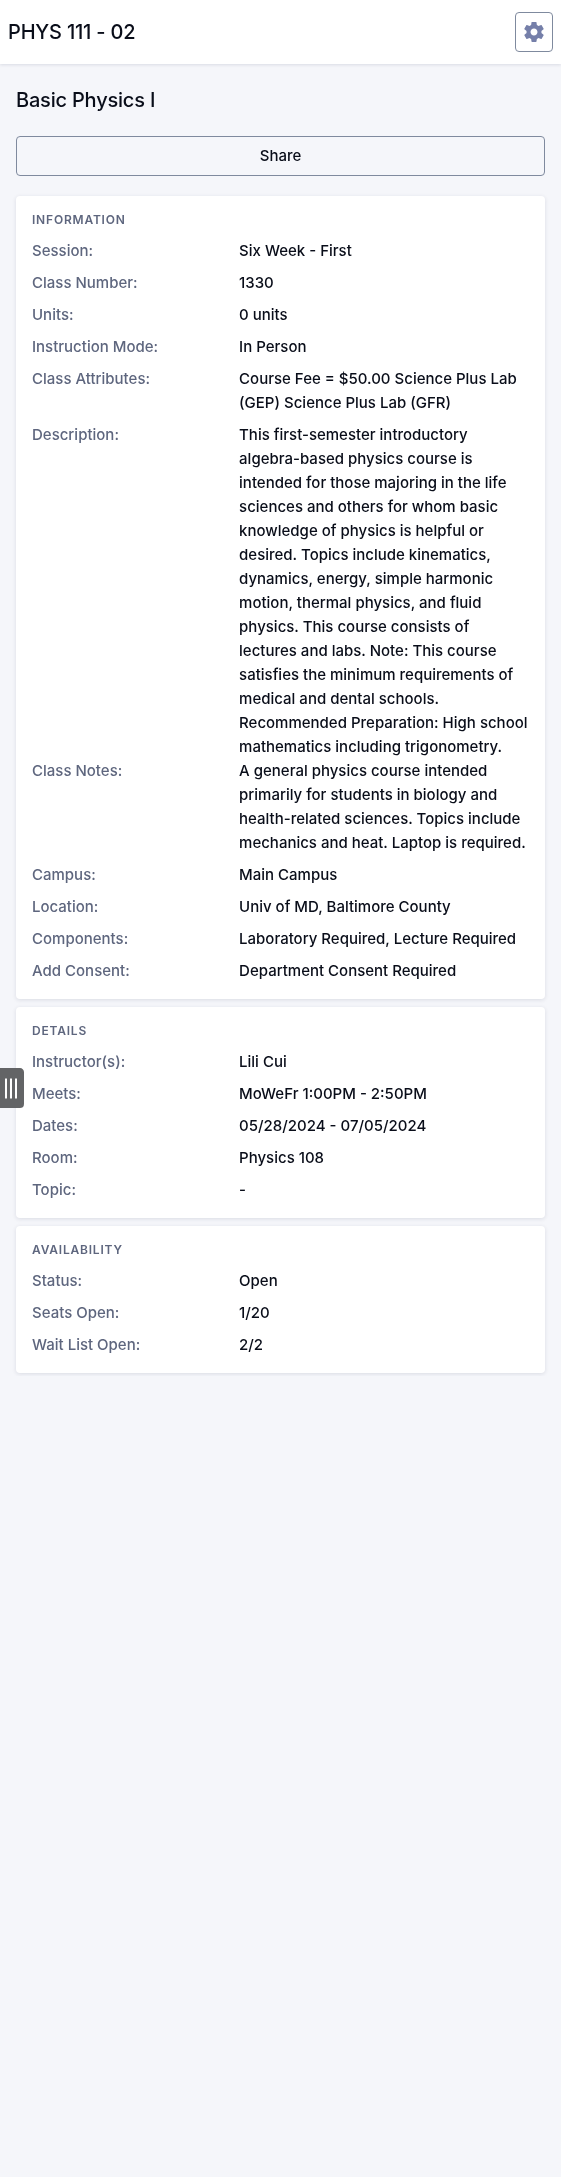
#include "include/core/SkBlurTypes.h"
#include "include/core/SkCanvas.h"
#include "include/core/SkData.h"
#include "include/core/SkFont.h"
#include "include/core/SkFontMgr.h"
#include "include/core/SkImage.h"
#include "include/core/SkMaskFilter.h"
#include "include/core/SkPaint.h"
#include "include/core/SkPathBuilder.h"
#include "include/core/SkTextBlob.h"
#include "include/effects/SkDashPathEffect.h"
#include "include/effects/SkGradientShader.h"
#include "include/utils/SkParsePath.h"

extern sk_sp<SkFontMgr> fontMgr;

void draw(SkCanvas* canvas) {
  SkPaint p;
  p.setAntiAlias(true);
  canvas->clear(SkColorSetRGB(245, 246, 250));
  canvas->drawImageRect(SkImages::DeferredFromEncodedData(SkData::MakeFromFileName("images/1.png")), SkRect::MakeLTRB(0, 0, 561, 1376), SkSamplingOptions());
  p.setColor(SkColorSetRGB(99, 100, 102));
  canvas->drawPath(SkPathBuilder().moveTo(24, 1072).lineTo(24, 1104).cubicTo(24, 1107, 22, 1108, 20, 1108).lineTo(0, 1108).lineTo(0, 1068).lineTo(20, 1068).cubicTo(22, 1068, 24, 1070, 24, 1072).close().detach(), p);
  canvas->drawImageRect(SkImages::DeferredFromEncodedData(SkData::MakeFromFileName("images/2.png")), SkRect::MakeLTRB(5, 1078, 17, 1099), SkSamplingOptions());
}
